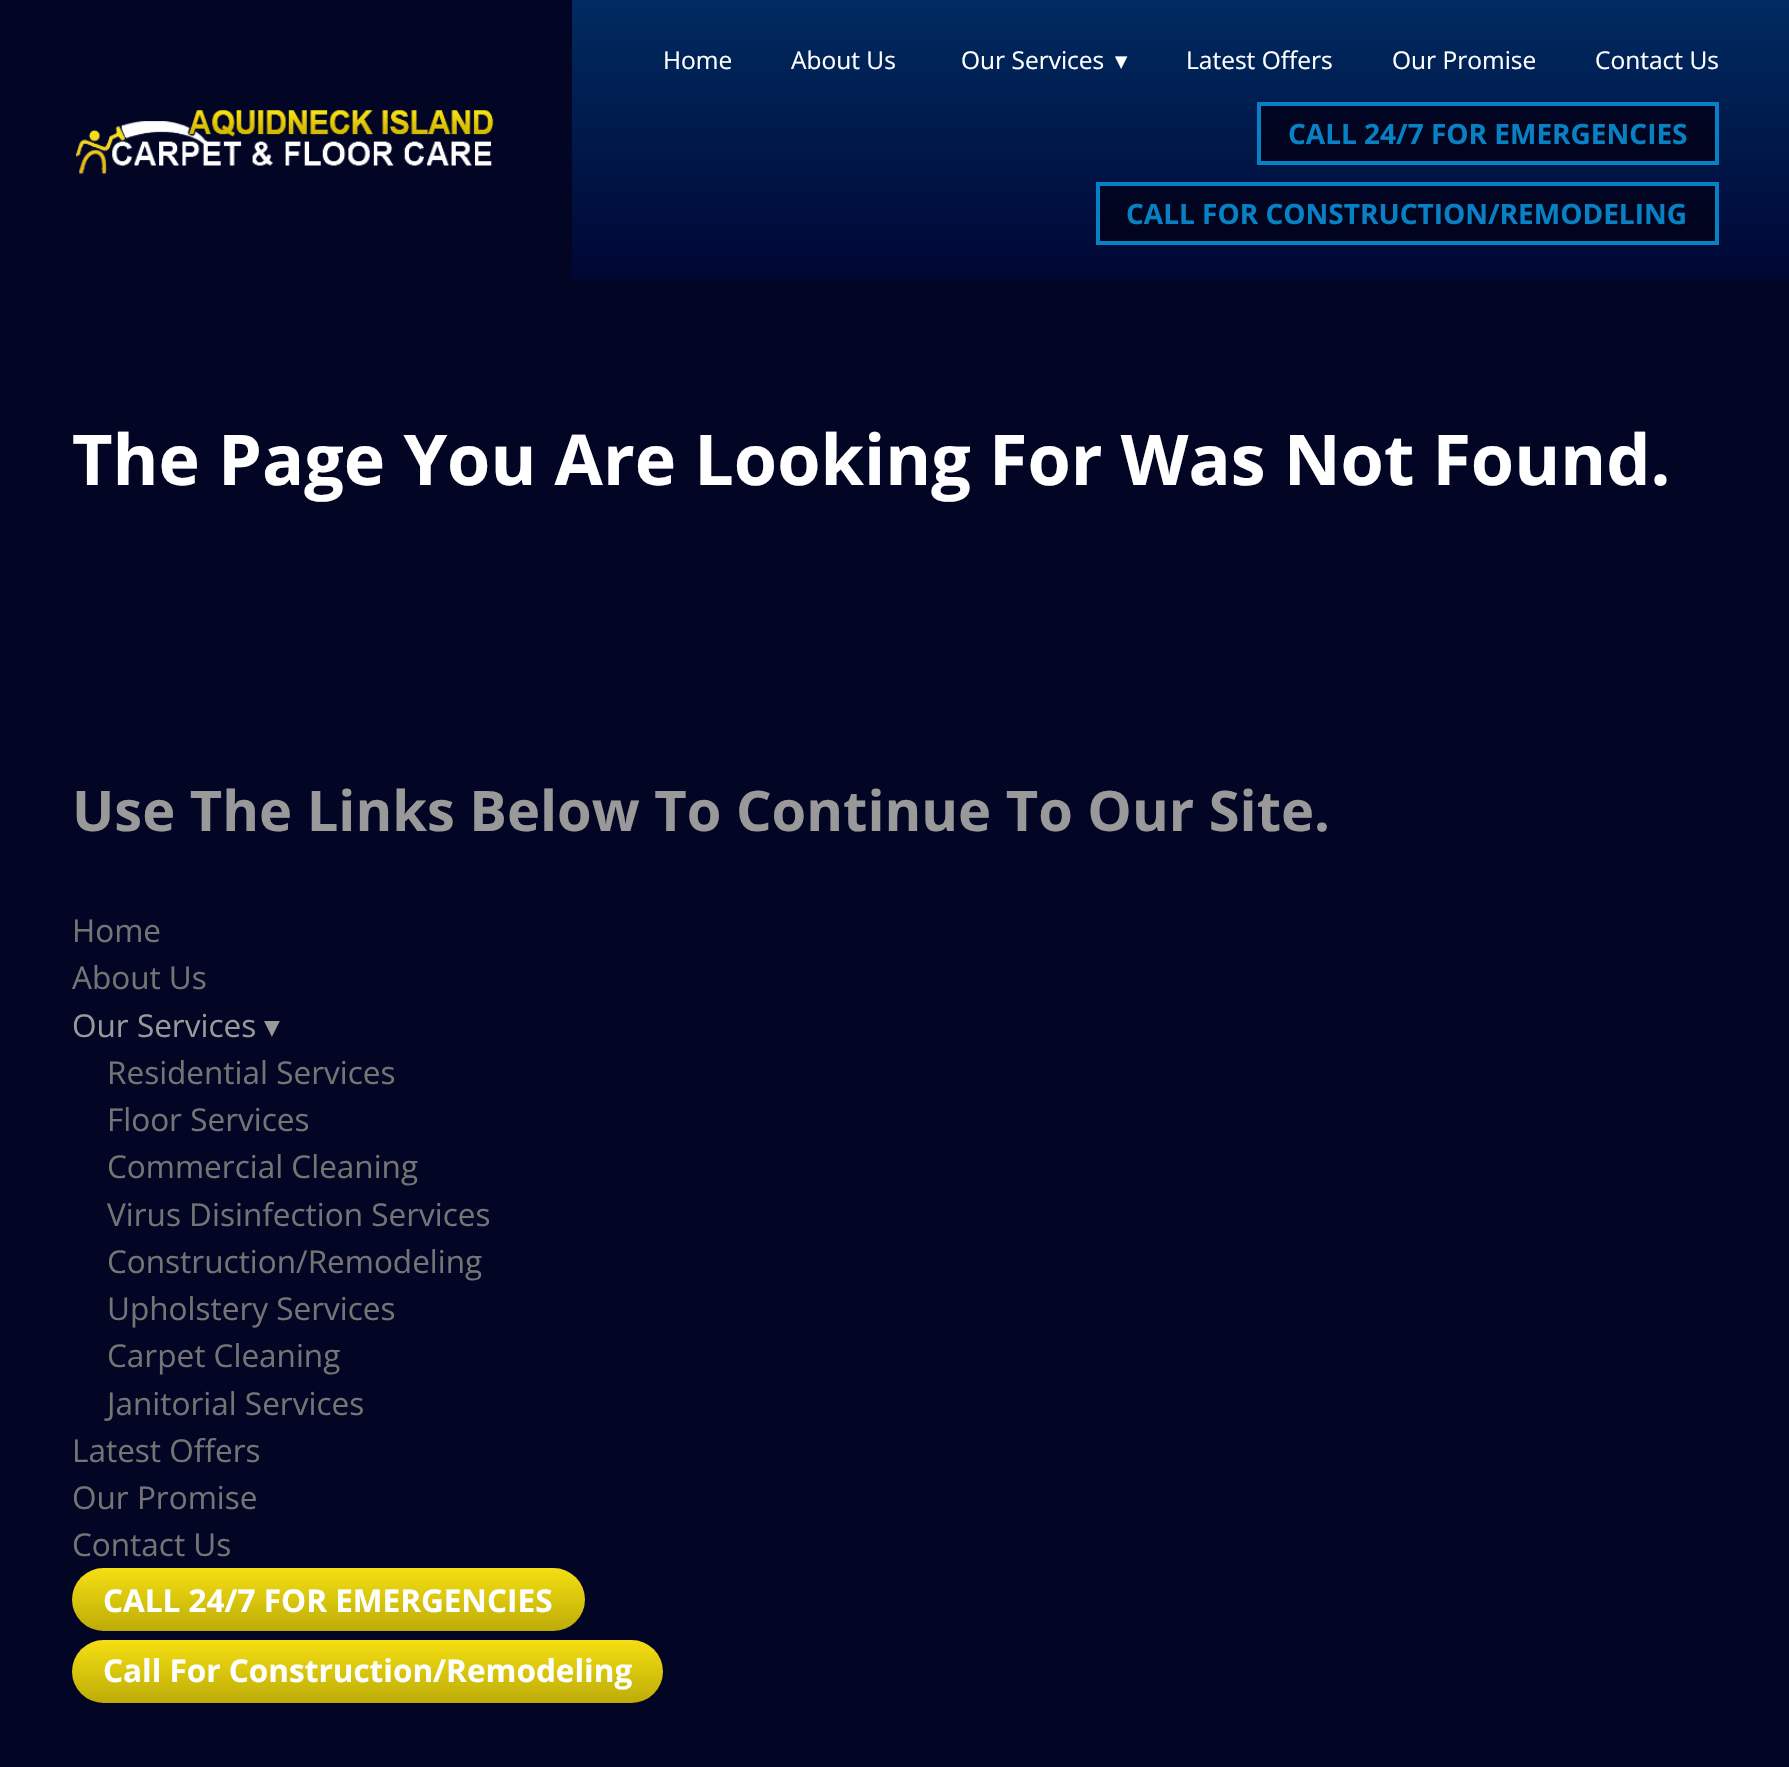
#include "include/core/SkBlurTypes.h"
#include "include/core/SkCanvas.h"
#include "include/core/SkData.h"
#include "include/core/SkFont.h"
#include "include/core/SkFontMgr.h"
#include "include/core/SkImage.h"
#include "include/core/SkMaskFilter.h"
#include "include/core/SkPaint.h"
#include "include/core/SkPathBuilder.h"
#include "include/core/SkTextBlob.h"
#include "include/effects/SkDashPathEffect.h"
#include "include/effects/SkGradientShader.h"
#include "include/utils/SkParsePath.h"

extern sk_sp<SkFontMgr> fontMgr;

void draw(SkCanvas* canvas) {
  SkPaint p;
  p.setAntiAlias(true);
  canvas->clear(SkColorSetRGB(2, 5, 36));
  {
    const SkColor colors[] = {SkColorSetRGB(0, 43, 97), SkColorSetRGB(0, 6, 52)};
    const float stops[] = {0, 1};
    const SkPoint ends[] = {{895, 0}, {895, 280}};
    p.setShader(SkGradientShader::MakeLinear(ends, colors, stops, 2, SkTileMode::kClamp));
    p.setAlpha(255);
  }
  canvas->drawRect(SkRect::MakeLTRB(572, 0, 1789, 280), p);
  canvas->drawImageRect(SkImages::DeferredFromEncodedData(SkData::MakeFromFileName("images/1.png")), SkRect::MakeLTRB(76, 110, 494, 175), SkSamplingOptions());
  {
    const SkColor colors[] = {SkColorSetRGB(2, 5, 36), SkColorSetRGB(1, 4, 27)};
    const float stops[] = {0, 1};
    const SkPoint ends[] = {{1488, 105}, {1488, 161}};
    p.setShader(SkGradientShader::MakeLinear(ends, colors, stops, 2, SkTileMode::kClamp));
    p.setAlpha(255);
  }
  canvas->drawRect(SkRect::MakeLTRB(1261, 106, 1715, 161), p);
  p.setStyle(SkPaint::kStroke_Style);
  p.setStrokeWidth(4);
  p.setShader(nullptr);
  p.setColor(SkColorSetRGB(7, 129, 195));
  canvas->drawRect(SkRect::MakeLTRB(1259, 104, 1717, 163), p);
  p.setStyle(SkPaint::kFill_Style);
  {
    const SkColor colors[] = {SkColorSetRGB(2, 5, 36), SkColorSetRGB(1, 4, 27)};
    const float stops[] = {0, 1};
    const SkPoint ends[] = {{1407, 185}, {1407, 242}};
    p.setShader(SkGradientShader::MakeLinear(ends, colors, stops, 2, SkTileMode::kClamp));
    p.setAlpha(255);
  }
  canvas->drawRect(SkRect::MakeLTRB(1100, 186, 1715, 241), p);
  p.setStyle(SkPaint::kStroke_Style);
  p.setShader(nullptr);
  p.setColor(SkColorSetRGB(7, 129, 195));
  canvas->drawRect(SkRect::MakeLTRB(1098, 184, 1717, 243), p);
  p.setStyle(SkPaint::kFill_Style);
  {
    const SkColor colors[] = {SkColorSetRGB(245, 223, 18), SkColorSetRGB(189, 172, 8)};
    const float stops[] = {0, 1};
    const SkPoint ends[] = {{328, 1568}, {328, 1631}};
    p.setShader(SkGradientShader::MakeLinear(ends, colors, stops, 2, SkTileMode::kClamp));
    p.setAlpha(255);
  }
  canvas->drawRoundRect(SkRect::MakeLTRB(72, 1568, 585, 1631), 31.5f, 31.5f, p);
  {
    const SkColor colors[] = {SkColorSetRGB(245, 223, 18), SkColorSetRGB(189, 172, 8)};
    const float stops[] = {0, 1};
    const SkPoint ends[] = {{368, 1640}, {368, 1703}};
    p.setShader(SkGradientShader::MakeLinear(ends, colors, stops, 2, SkTileMode::kClamp));
    p.setAlpha(255);
  }
  canvas->drawRoundRect(SkRect::MakeLTRB(72, 1640, 663, 1703), 31.5f, 31.5f, p);
  SkFont font1(fontMgr->matchFamilyStyle("Open Sans", SkFontStyle::Normal()), 24.5f);
  font1.setSubpixel(true);
  p.setShader(nullptr);
  p.setColor(SK_ColorWHITE);
  canvas->drawString("Home", 663, 69, font1, p);
  canvas->drawString("About Us", 791, 69, font1, p);
  canvas->drawString("Our Services", 961, 69, font1, p);
  SkFont font2(fontMgr->matchFamilyStyle("DejaVu Sans", SkFontStyle::Normal()), 24.5f);
  font2.setSubpixel(true);
  canvas->drawString("▾", 1115, 69, font2, p);
  canvas->drawString("Latest Offers", 1186, 69, font1, p);
  canvas->drawString("Our Promise", 1392, 69, font1, p);
  canvas->drawString("Contact Us", 1595, 69, font1, p);
  SkFont font3(fontMgr->matchFamilyStyle("Open Sans", SkFontStyle::Bold()), 28);
  font3.setSubpixel(true);
  p.setColor(SkColorSetRGB(7, 129, 195));
  canvas->drawString("CALL 24/7 FOR EMERGENCIES", 1288, 144, font3, p);
  canvas->drawString("CALL FOR CONSTRUCTION/REMODELING", 1126, 224, font3, p);
  SkFont font4(fontMgr->matchFamilyStyle("Open Sans", SkFontStyle::Bold()), 70);
  font4.setSubpixel(true);
  p.setColor(SK_ColorWHITE);
  canvas->drawString("The Page You Are Looking For Was Not Found.", 72, 485, font4, p);
  SkFont font5(fontMgr->matchFamilyStyle("Open Sans", SkFontStyle::Bold()), 56);
  font5.setSubpixel(true);
  p.setColor(SkColorSetRGB(153, 153, 153));
  canvas->drawString("Use The Links Below To Continue To Our Site.", 72, 831, font5, p);
  SkFont font6(fontMgr->matchFamilyStyle("Open Sans", SkFontStyle::Normal()), 31.5f);
  font6.setSubpixel(true);
  p.setColor(SkColorSetRGB(116, 116, 116));
  canvas->drawString("Home", 72, 942, font6, p);
  canvas->drawString("About Us", 72, 989, font6, p);
  p.setColor(SkColorSetRGB(153, 153, 153));
  canvas->drawString("Our Services", 72, 1037, font6, p);
  SkFont font7(fontMgr->matchFamilyStyle("DejaVu Sans", SkFontStyle::Normal()), 31.5f);
  font7.setSubpixel(true);
  canvas->drawString("▾", 264, 1037, font7, p);
  p.setColor(SkColorSetRGB(116, 116, 116));
  canvas->drawString("Residential Services", 107, 1084, font6, p);
  canvas->drawString("Floor Services", 107, 1131, font6, p);
  canvas->drawString("Commercial Cleaning", 107, 1178, font6, p);
  canvas->drawString("Virus Disinfection Services", 107, 1226, font6, p);
  canvas->drawString("Construction/Remodeling", 107, 1273, font6, p);
  canvas->drawString("Upholstery Services", 107, 1320, font6, p);
  canvas->drawString("Carpet Cleaning", 107, 1367, font6, p);
  canvas->drawString("Janitorial Services", 107, 1415, font6, p);
  canvas->drawString("Latest Offers", 72, 1462, font6, p);
  canvas->drawString("Our Promise", 72, 1509, font6, p);
  canvas->drawString("Contact Us", 72, 1556, font6, p);
  SkFont font8(fontMgr->matchFamilyStyle("Open Sans", SkFontStyle::Bold()), 31.5f);
  font8.setSubpixel(true);
  p.setColor(SK_ColorWHITE);
  canvas->drawString("CALL 24/7 FOR EMERGENCIES", 103, 1612, font8, p);
  canvas->drawString("Call For Construction/Remodeling", 103, 1682, font8, p);
}
